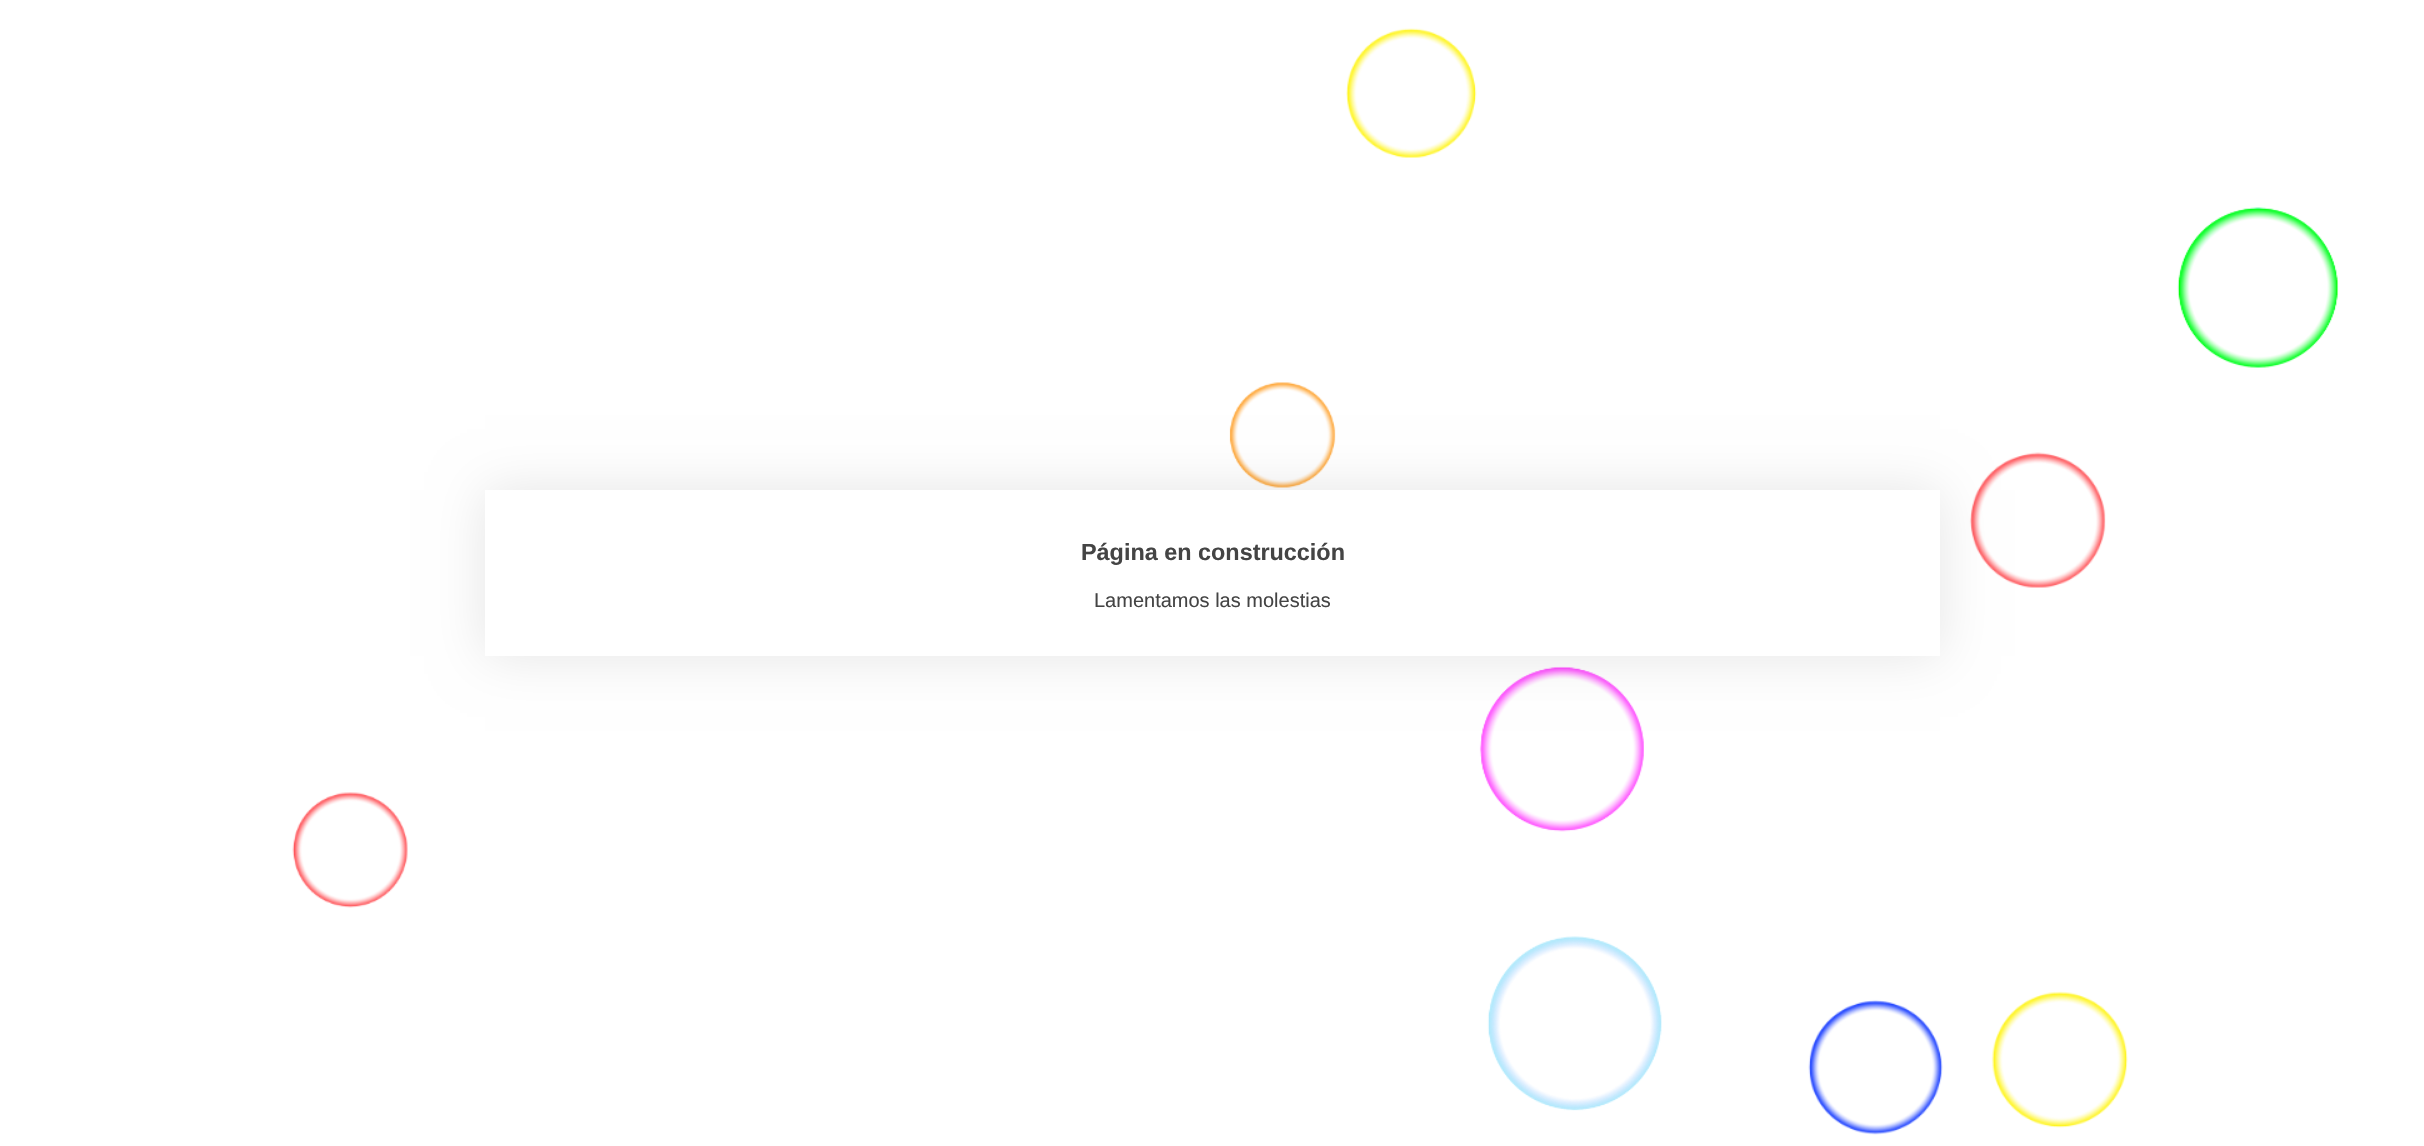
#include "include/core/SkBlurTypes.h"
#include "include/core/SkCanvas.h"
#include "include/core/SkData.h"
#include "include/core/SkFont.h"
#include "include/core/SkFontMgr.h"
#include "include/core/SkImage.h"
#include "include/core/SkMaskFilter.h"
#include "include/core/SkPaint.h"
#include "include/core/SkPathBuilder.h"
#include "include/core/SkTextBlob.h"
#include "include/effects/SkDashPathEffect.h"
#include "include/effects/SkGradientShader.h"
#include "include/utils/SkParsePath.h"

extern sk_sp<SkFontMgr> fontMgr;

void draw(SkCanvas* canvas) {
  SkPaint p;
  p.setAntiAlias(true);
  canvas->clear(SK_ColorWHITE);
  canvas->drawImageRect(SkImages::DeferredFromEncodedData(SkData::MakeFromFileName("images/1.png")), SkRect::MakeLTRB(292, 28, 2339, 1135), SkSamplingOptions());
  canvas->save();
  canvas->clipPath(SkPathBuilder(SkPathFillType::kEvenOdd).moveTo(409, 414).lineTo(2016, 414).lineTo(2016, 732).lineTo(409, 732).close().moveTo(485, 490).lineTo(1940, 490).lineTo(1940, 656).lineTo(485, 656).close().detach(), true);
  p.setColor(SkColorSetARGB(26, 0, 0, 0));
  p.setMaskFilter(SkMaskFilter::MakeBlur(kNormal_SkBlurStyle, 25));
  canvas->drawRect(SkRect::MakeLTRB(485, 490, 1940, 656), p);
  p.setMaskFilter(nullptr);
  canvas->restore();
  SkFont font1(fontMgr->matchFamilyStyle("Liberation Sans", SkFontStyle::Bold()), 23.4f);
  font1.setSubpixel(true);
  p.setColor(SkColorSetRGB(68, 68, 68));
  canvas->drawString("Página en construcción", 1081, 560, font1, p);
  SkFont font2(fontMgr->matchFamilyStyle("Liberation Sans", SkFontStyle::Normal()), 20);
  font2.setSubpixel(true);
  canvas->drawString("Lamentamos las molestias", 1094, 607, font2, p);
}
